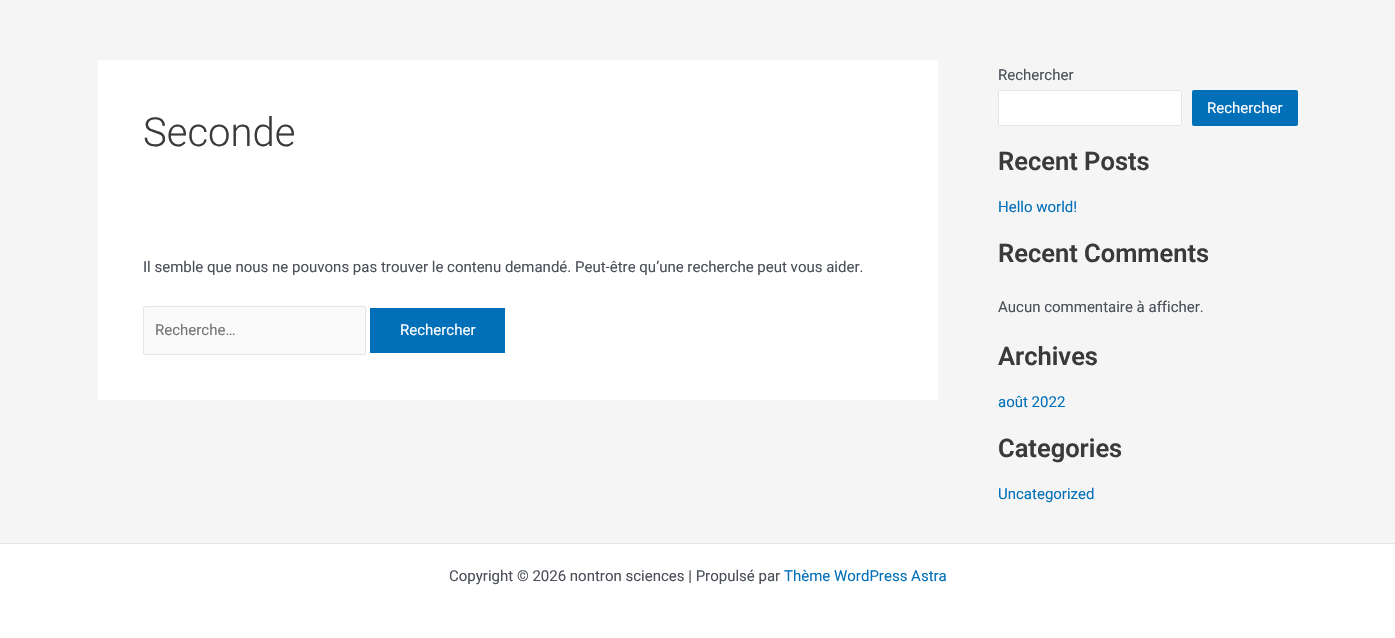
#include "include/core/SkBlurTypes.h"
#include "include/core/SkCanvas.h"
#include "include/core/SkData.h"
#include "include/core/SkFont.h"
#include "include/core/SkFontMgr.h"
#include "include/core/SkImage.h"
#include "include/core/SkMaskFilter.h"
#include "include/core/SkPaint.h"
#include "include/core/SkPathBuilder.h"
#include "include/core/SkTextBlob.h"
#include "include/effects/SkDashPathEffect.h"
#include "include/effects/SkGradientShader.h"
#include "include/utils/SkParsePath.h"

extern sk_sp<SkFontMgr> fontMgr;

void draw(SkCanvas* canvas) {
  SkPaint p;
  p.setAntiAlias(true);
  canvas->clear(SkColorSetRGB(245, 245, 245));
  p.setColor(SK_ColorWHITE);
  canvas->drawRect(SkRect::MakeLTRB(98, 60, 938, 400), p);
  p.setColor(SkColorSetRGB(250, 250, 250));
  canvas->drawRoundRect(SkRect::MakeLTRB(143.5f, 306.5f, 365.5f, 354.5f), 1.5f, 1.5f, p);
  p.setStyle(SkPaint::kStroke_Style);
  p.setStrokeWidth(1);
  p.setColor(SkColorSetRGB(229, 229, 229));
  canvas->drawRoundRect(SkRect::MakeLTRB(143.5f, 306.5f, 365.5f, 354.5f), 1.5f, 1.5f, p);
  p.setStyle(SkPaint::kFill_Style);
  p.setColor(SkColorSetRGB(1, 112, 185));
  canvas->drawRect(SkRect::MakeLTRB(370, 308, 505, 353), p);
  p.setColor(SK_ColorWHITE);
  canvas->drawRoundRect(SkRect::MakeLTRB(998.5f, 90.5f, 1181.5f, 125.5f), 1.5f, 1.5f, p);
  p.setStyle(SkPaint::kStroke_Style);
  p.setColor(SkColorSetRGB(229, 229, 229));
  canvas->drawRoundRect(SkRect::MakeLTRB(998.5f, 90.5f, 1181.5f, 125.5f), 1.5f, 1.5f, p);
  p.setStyle(SkPaint::kFill_Style);
  p.setColor(SkColorSetRGB(1, 112, 185));
  canvas->drawRoundRect(SkRect::MakeLTRB(1192, 90, 1298, 126), 2, 2, p);
  p.setColor(SK_ColorWHITE);
  canvas->drawRect(SkRect::MakeLTRB(0, 544, 1395, 638), p);
  p.setColor(SkColorSetRGB(229, 229, 229));
  canvas->drawRect(SkRect::MakeLTRB(0, 543, 1395, 544), p);
  SkFont font1(fontMgr->matchFamilyStyle("Roboto", SkFontStyle(300, SkFontStyle::kNormal_Width, SkFontStyle::kUpright_Slant)), 40);
  font1.setSubpixel(true);
  p.setColor(SkColorSetRGB(58, 58, 58));
  canvas->drawString("Seconde", 143, 146, font1, p);
  SkFont font2(fontMgr->matchFamilyStyle("Roboto", SkFontStyle::Normal()), 15);
  font2.setSubpixel(true);
  p.setColor(SkColorSetRGB(75, 79, 88));
  canvas->drawString("Il semble que nous ne pouvons pas trouver le contenu demandé. Peut-être qu’une recherche peut vous aider.", 143, 272, font2, p);
  p.setColor(SkColorSetRGB(117, 117, 117));
  canvas->drawString("Recherche…", 155, 335, font2, p);
  p.setColor(SK_ColorWHITE);
  canvas->drawString("Rechercher", 400, 335, font2, p);
  p.setColor(SkColorSetRGB(75, 79, 88));
  canvas->drawString("Rechercher", 998, 80, font2, p);
  p.setColor(SK_ColorWHITE);
  canvas->drawString("Rechercher", 1207, 113, font2, p);
  SkFont font3(fontMgr->matchFamilyStyle("Roboto", SkFontStyle(600, SkFontStyle::kNormal_Width, SkFontStyle::kUpright_Slant)), 25.5f);
  font3.setSubpixel(true);
  p.setColor(SkColorSetRGB(58, 58, 58));
  canvas->drawString("Recent Posts", 998, 170, font3, p);
  p.setColor(SkColorSetRGB(1, 112, 185));
  canvas->drawString("Hello world!", 998, 212, font2, p);
  p.setColor(SkColorSetRGB(58, 58, 58));
  canvas->drawString("Recent Comments", 998, 262, font3, p);
  p.setColor(SkColorSetRGB(75, 79, 88));
  canvas->drawString("Aucun commentaire à afficher.", 998, 312, font2, p);
  p.setColor(SkColorSetRGB(58, 58, 58));
  canvas->drawString("Archives", 998, 365, font3, p);
  p.setColor(SkColorSetRGB(1, 112, 185));
  canvas->drawString("août 2022", 998, 407, font2, p);
  p.setColor(SkColorSetRGB(58, 58, 58));
  canvas->drawString("Categories", 998, 457, font3, p);
  p.setColor(SkColorSetRGB(1, 112, 185));
  canvas->drawString("Uncategorized", 998, 499, font2, p);
  p.setColor(SkColorSetRGB(75, 79, 88));
  canvas->drawString("Copyright © 2026 nontron sciences | Propulsé par", 449, 581, font2, p);
  p.setColor(SkColorSetRGB(1, 112, 185));
  canvas->drawString("Thème WordPress Astra", 784, 581, font2, p);
}
